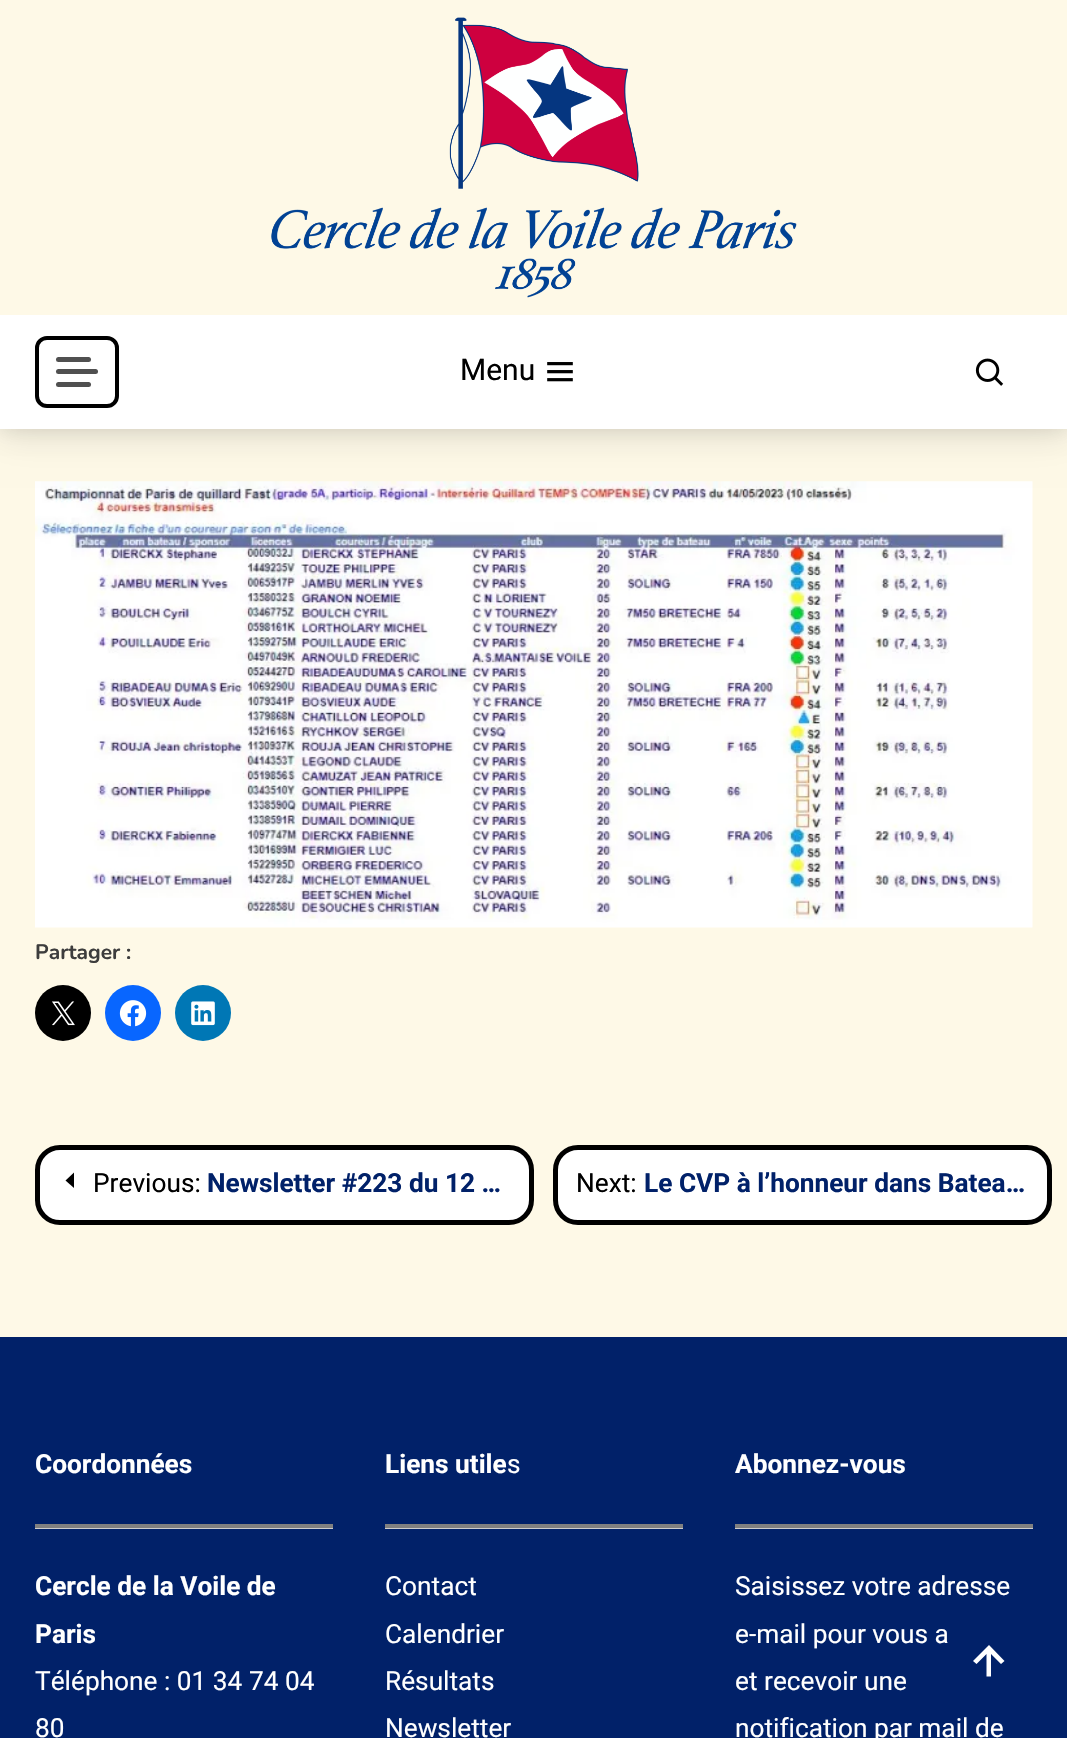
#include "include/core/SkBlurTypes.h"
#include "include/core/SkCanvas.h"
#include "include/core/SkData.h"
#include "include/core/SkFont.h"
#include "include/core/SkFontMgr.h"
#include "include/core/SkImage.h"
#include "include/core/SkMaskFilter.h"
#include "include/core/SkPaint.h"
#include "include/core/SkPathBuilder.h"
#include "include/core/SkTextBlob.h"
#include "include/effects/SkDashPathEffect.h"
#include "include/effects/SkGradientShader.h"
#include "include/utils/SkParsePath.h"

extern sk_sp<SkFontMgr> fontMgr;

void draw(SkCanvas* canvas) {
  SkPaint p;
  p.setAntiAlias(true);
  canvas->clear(SkColorSetRGB(254, 249, 231));
  p.setColor(SkColorSetARGB(26, 0, 0, 0));
  p.setMaskFilter(SkMaskFilter::MakeBlur(kNormal_SkBlurStyle, 9));
  canvas->drawRect(SkRect::MakeLTRB(0, 0, 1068, 429), p);
  p.setMaskFilter(nullptr);
  canvas->drawImageRect(SkImages::DeferredFromEncodedData(SkData::MakeFromFileName("images/4.png")), SkRect::MakeLTRB(35, 481, 1033, 928), SkSamplingOptions());
  p.setMaskFilter(SkMaskFilter::MakeBlur(kNormal_SkBlurStyle, 17.5f));
  canvas->drawRect(SkRect::MakeLTRB(0, 322, 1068, 436), p);
  p.setMaskFilter(nullptr);
  p.setColor(SkColorSetRGB(254, 249, 231));
  canvas->drawRect(SkRect::MakeLTRB(0, 0, 1067, 315), p);
  canvas->drawImageRect(SkImages::DeferredFromEncodedData(SkData::MakeFromFileName("images/1.png")), SkRect::MakeLTRB(271, 17, 797, 298), SkSamplingOptions());
  p.setColor(SK_ColorWHITE);
  canvas->drawRect(SkRect::MakeLTRB(0, 315, 1067, 429), p);
  p.setStyle(SkPaint::kStroke_Style);
  p.setStrokeWidth(4);
  p.setColor(SK_ColorBLACK);
  canvas->drawRoundRect(SkRect::MakeLTRB(37, 338, 117, 406), 10, 10, p);
  p.setStyle(SkPaint::kFill_Style);
  p.setColor(SkColorSetRGB(80, 80, 80));
  canvas->drawRoundRect(SkRect::MakeLTRB(56, 357, 91, 362), 2.5f, 2.5f, p);
  canvas->drawRoundRect(SkRect::MakeLTRB(56, 369, 98, 374), 2.5f, 2.5f, p);
  canvas->drawRoundRect(SkRect::MakeLTRB(56, 382, 91, 387), 2.5f, 2.5f, p);
  canvas->drawImageRect(SkImages::DeferredFromEncodedData(SkData::MakeFromFileName("images/2.png")), SkRect::MakeLTRB(547, 362, 573, 382), SkSamplingOptions());
  canvas->drawImageRect(SkImages::DeferredFromEncodedData(SkData::MakeFromFileName("images/3.png")), SkRect::MakeLTRB(975, 358, 1004, 386), SkSamplingOptions());
  p.setColor(SK_ColorBLACK);
  canvas->drawCircle(63, 1013, 28, p);
  canvas->drawImageRect(SkImages::DeferredFromEncodedData(SkData::MakeFromFileName("images/5.png")), SkRect::MakeLTRB(52, 1001, 75, 1026), SkSamplingOptions());
  p.setColor(SkColorSetRGB(8, 102, 255));
  canvas->drawCircle(133, 1013, 28, p);
  canvas->drawImageRect(SkImages::DeferredFromEncodedData(SkData::MakeFromFileName("images/6.png")), SkRect::MakeLTRB(119, 1000, 147, 1027), SkSamplingOptions());
  p.setColor(SkColorSetRGB(0, 119, 181));
  canvas->drawCircle(203, 1013, 28, p);
  canvas->drawImageRect(SkImages::DeferredFromEncodedData(SkData::MakeFromFileName("images/7.png")), SkRect::MakeLTRB(191, 1001, 215, 1026), SkSamplingOptions());
  p.setColor(SK_ColorWHITE);
  canvas->drawRoundRect(SkRect::MakeLTRB(37.5f, 1147.5f, 531.5f, 1222.5f), 22.5f, 22.5f, p);
  p.setStyle(SkPaint::kStroke_Style);
  p.setStrokeWidth(5);
  p.setColor(SK_ColorBLACK);
  canvas->drawRoundRect(SkRect::MakeLTRB(37.5f, 1147.5f, 531.5f, 1222.5f), 22.5f, 22.5f, p);
  p.setStyle(SkPaint::kFill_Style);
  canvas->drawPath(SkPathBuilder().moveTo(74, 1188).lineTo(74, 1172.5f).lineTo(65.5f, 1180.5f).close().detach(), p);
  p.setColor(SK_ColorWHITE);
  canvas->drawRoundRect(SkRect::MakeLTRB(555.5f, 1147.5f, 1049.5f, 1222.5f), 22.5f, 22.5f, p);
  p.setStyle(SkPaint::kStroke_Style);
  p.setColor(SK_ColorBLACK);
  canvas->drawRoundRect(SkRect::MakeLTRB(555.5f, 1147.5f, 1049.5f, 1222.5f), 22.5f, 22.5f, p);
  p.setStyle(SkPaint::kFill_Style);
  p.setColor(SkColorSetRGB(1, 33, 105));
  canvas->drawRect(SkRect::MakeLTRB(0, 1337, 1067, 1738), p);
  p.setColor(SkColorSetRGB(204, 204, 204));
  canvas->drawRect(SkRect::MakeLTRB(35, 1528, 333, 1529), p);
  p.setColor(SkColorSetRGB(128, 128, 128));
  canvas->drawRect(SkRect::MakeLTRB(35, 1524, 333, 1528), p);
  p.setColor(SkColorSetRGB(204, 204, 204));
  canvas->drawRect(SkRect::MakeLTRB(385, 1528, 683, 1529), p);
  p.setColor(SkColorSetRGB(128, 128, 128));
  canvas->drawRect(SkRect::MakeLTRB(385, 1524, 683, 1528), p);
  p.setColor(SkColorSetRGB(204, 204, 204));
  canvas->drawRect(SkRect::MakeLTRB(735, 1528, 1033, 1529), p);
  p.setColor(SkColorSetRGB(128, 128, 128));
  canvas->drawRect(SkRect::MakeLTRB(735, 1524, 1033, 1528), p);
  p.setColor(SK_ColorWHITE);
  canvas->drawPath(SkPathBuilder().moveTo(986.5f, 1654).lineTo(986.5f, 1676.5f).lineTo(991, 1676.5f).lineTo(991, 1654).lineTo(1001, 1664).lineTo(1004.5f, 1661).lineTo(989, 1645).lineTo(973, 1661).lineTo(976.5f, 1664).close().detach(), p);
  SkFont font1(fontMgr->matchFamilyStyle("Roboto", SkFontStyle::Normal()), 30);
  font1.setSubpixel(true);
  p.setColor(SK_ColorBLACK);
  canvas->drawString("Menu", 460, 380, font1, p);
  SkFont font2(fontMgr->matchFamilyStyle("Nunito", SkFontStyle::Bold()), 21);
  font2.setSubpixel(true);
  p.setColor(SkColorSetRGB(61, 61, 61));
  canvas->drawString("Partager :", 35, 959, font2, p);
  SkFont font3(fontMgr->matchFamilyStyle("Roboto", SkFontStyle::Normal()), 26.25f);
  font3.setSubpixel(true);
  p.setColor(SK_ColorBLACK);
  canvas->drawString("Previous:", 93, 1192, font3, p);
  SkFont font4(fontMgr->matchFamilyStyle("Roboto", SkFontStyle::Bold()), 26.25f);
  font4.setSubpixel(true);
  p.setColor(SkColorSetRGB(1, 33, 105));
  canvas->drawString("Newsletter #223 du 12 …", 207, 1192, font4, p);
  p.setColor(SK_ColorBLACK);
  canvas->drawString("Next:", 576, 1192, font3, p);
  p.setColor(SkColorSetRGB(1, 33, 105));
  canvas->drawString("Le CVP à l’honneur dans Batea…", 644, 1192, font4, p);
  p.setColor(SK_ColorWHITE);
  canvas->drawString("Coordonnées", 35, 1473, font4, p);
  canvas->drawString("Cercle de la Voile de", 35, 1595, font4, p);
  canvas->drawString("Paris", 35, 1643, font4, p);
  canvas->drawString("Téléphone : 01 34 74 04", 35, 1690, font3, p);
  canvas->drawString("80", 35, 1737, font3, p);
  canvas->drawString("Liens utile", 385, 1473, font4, p);
  canvas->drawString("s", 507, 1473, font3, p);
  canvas->drawString("Contact", 385, 1595, font3, p);
  canvas->drawString("Calendrier", 385, 1643, font3, p);
  canvas->drawString("Résultats", 385, 1690, font3, p);
  canvas->drawString("Newsletter", 385, 1737, font3, p);
  canvas->drawString("Abonnez-vous", 735, 1473, font4, p);
  canvas->drawString("Saisissez votre adresse", 735, 1595, font3, p);
  canvas->drawString("e-mail pour vous a", 735, 1643, font3, p);
  canvas->drawString("et recevoir une", 735, 1690, font3, p);
  canvas->drawString("notification par mail de", 735, 1737, font3, p);
}
